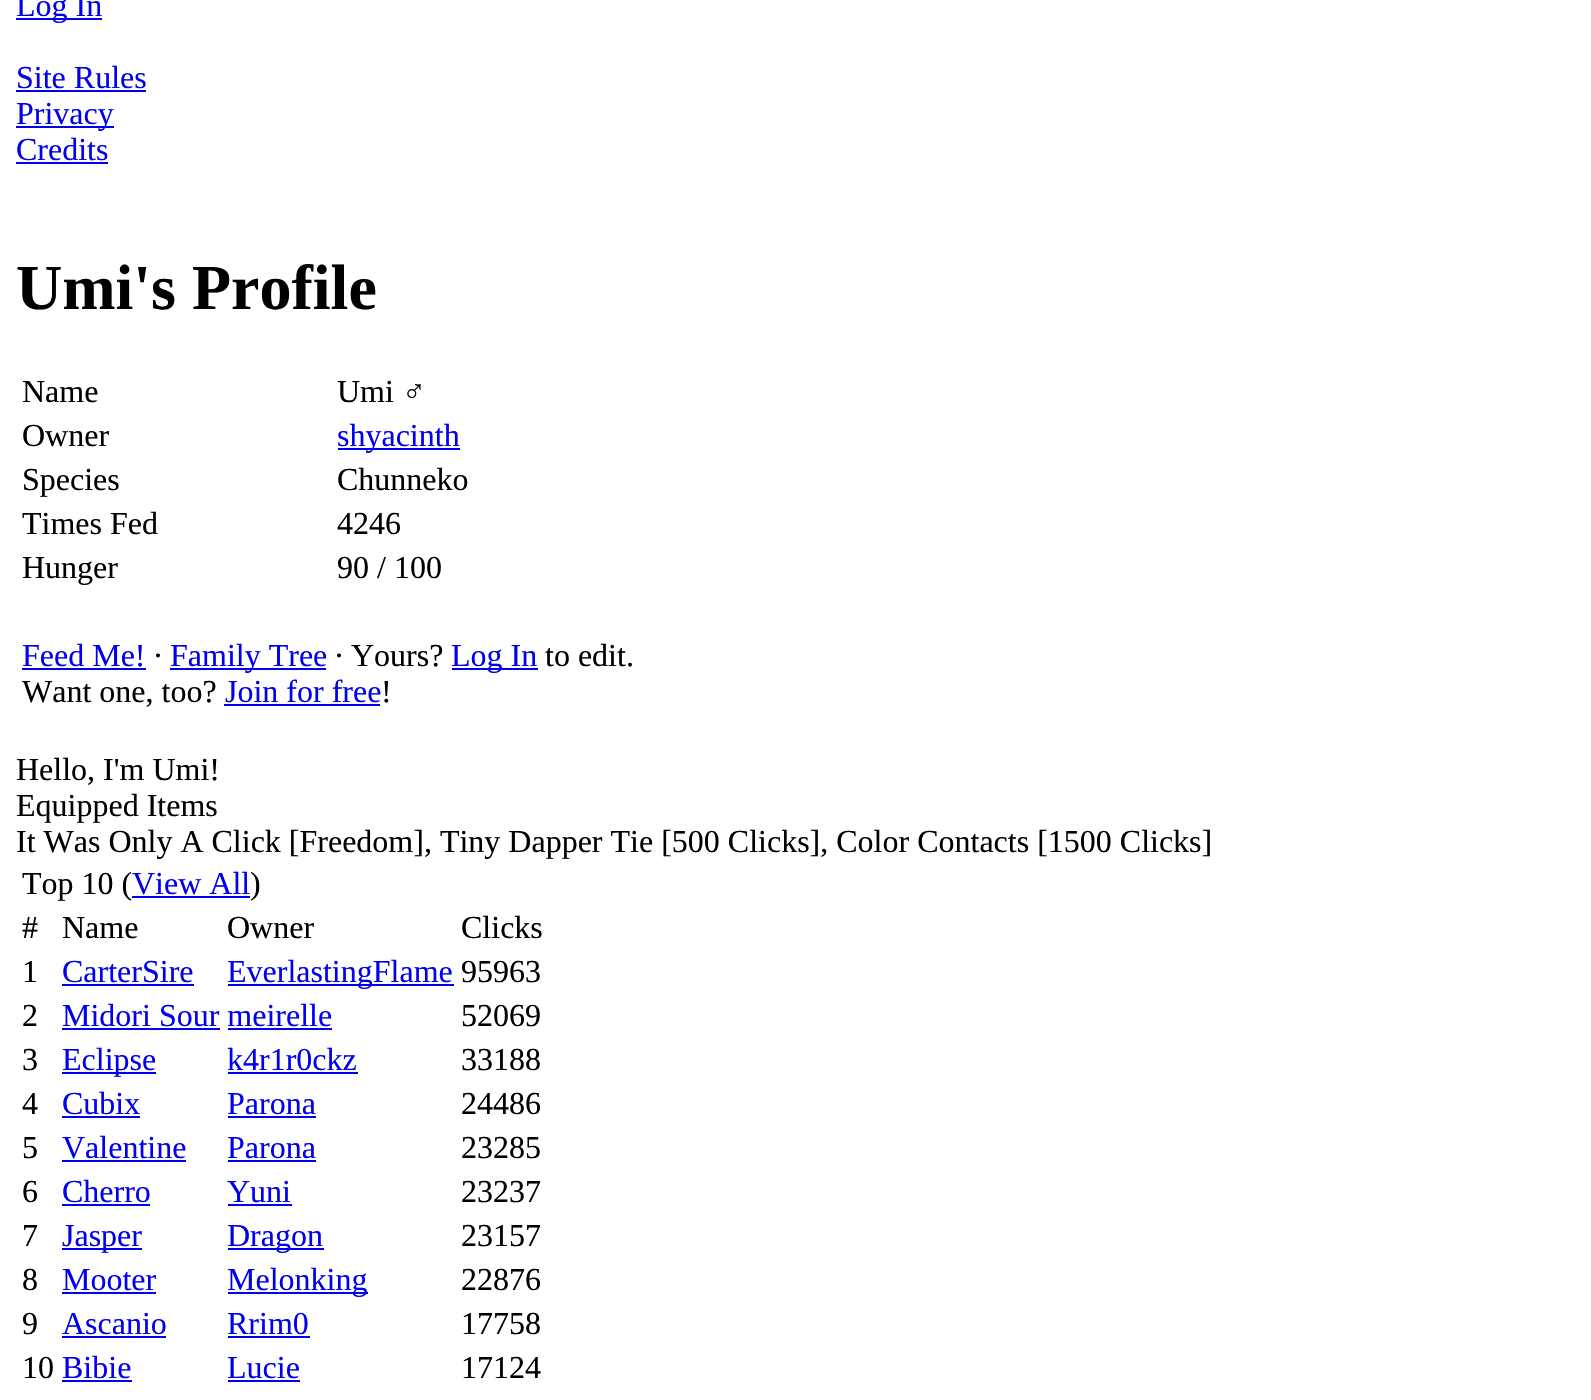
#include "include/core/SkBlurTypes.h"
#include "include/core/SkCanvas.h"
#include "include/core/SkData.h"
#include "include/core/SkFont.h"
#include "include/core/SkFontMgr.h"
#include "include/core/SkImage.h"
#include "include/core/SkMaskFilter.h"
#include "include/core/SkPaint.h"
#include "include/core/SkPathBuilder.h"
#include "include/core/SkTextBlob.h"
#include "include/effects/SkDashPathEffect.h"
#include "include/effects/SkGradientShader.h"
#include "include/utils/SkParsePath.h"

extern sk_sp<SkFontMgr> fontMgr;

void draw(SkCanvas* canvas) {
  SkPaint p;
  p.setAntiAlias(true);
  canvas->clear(SK_ColorWHITE);
  p.setColor(SkColorSetRGB(0, 0, 238));
  canvas->drawRect(SkRect::MakeLTRB(16, 18, 102, 20), p);
  canvas->drawRect(SkRect::MakeLTRB(16, 90, 146, 92), p);
  canvas->drawRect(SkRect::MakeLTRB(16, 126, 114, 128), p);
  canvas->drawRect(SkRect::MakeLTRB(16, 162, 108, 164), p);
  canvas->drawRect(SkRect::MakeLTRB(338, 448, 460, 450), p);
  canvas->drawRect(SkRect::MakeLTRB(22, 668, 146, 670), p);
  canvas->drawRect(SkRect::MakeLTRB(170, 668, 326, 670), p);
  canvas->drawRect(SkRect::MakeLTRB(452, 668, 538, 670), p);
  canvas->drawRect(SkRect::MakeLTRB(224, 704, 380, 706), p);
  canvas->drawRect(SkRect::MakeLTRB(132, 896, 250, 898), p);
  canvas->drawRect(SkRect::MakeLTRB(62, 984, 194, 986), p);
  canvas->drawRect(SkRect::MakeLTRB(228, 984, 454, 986), p);
  canvas->drawRect(SkRect::MakeLTRB(62, 1028, 220, 1030), p);
  canvas->drawRect(SkRect::MakeLTRB(228, 1028, 332, 1030), p);
  canvas->drawRect(SkRect::MakeLTRB(62, 1072, 156, 1074), p);
  canvas->drawRect(SkRect::MakeLTRB(228, 1072, 358, 1074), p);
  canvas->drawRect(SkRect::MakeLTRB(62, 1116, 140, 1118), p);
  canvas->drawRect(SkRect::MakeLTRB(228, 1116, 316, 1118), p);
  canvas->drawRect(SkRect::MakeLTRB(62, 1160, 186, 1162), p);
  canvas->drawRect(SkRect::MakeLTRB(228, 1160, 316, 1162), p);
  canvas->drawRect(SkRect::MakeLTRB(62, 1204, 150, 1206), p);
  canvas->drawRect(SkRect::MakeLTRB(228, 1204, 292, 1206), p);
  canvas->drawRect(SkRect::MakeLTRB(62, 1248, 142, 1250), p);
  canvas->drawRect(SkRect::MakeLTRB(228, 1248, 324, 1250), p);
  canvas->drawRect(SkRect::MakeLTRB(62, 1292, 156, 1294), p);
  canvas->drawRect(SkRect::MakeLTRB(228, 1292, 368, 1294), p);
  canvas->drawRect(SkRect::MakeLTRB(62, 1336, 166, 1338), p);
  canvas->drawRect(SkRect::MakeLTRB(228, 1336, 310, 1338), p);
  canvas->drawRect(SkRect::MakeLTRB(62, 1380, 132, 1382), p);
  canvas->drawRect(SkRect::MakeLTRB(228, 1380, 300, 1382), p);
  SkFont font1(fontMgr->matchFamilyStyle("Liberation Serif", SkFontStyle::Normal()), 32);
  font1.setSubpixel(true);
  canvas->drawString("Log In", 16, 16, font1, p);
  canvas->drawString("Site Rules", 16, 88, font1, p);
  canvas->drawString("Privacy", 16, 124, font1, p);
  canvas->drawString("Credits", 16, 160, font1, p);
  SkFont font2(fontMgr->matchFamilyStyle("Liberation Serif", SkFontStyle::Bold()), 64);
  font2.setSubpixel(true);
  p.setColor(SK_ColorBLACK);
  canvas->drawString("Umi's Profile", 16, 309, font2, p);
  canvas->drawString("Name", 22, 402, font1, p);
  canvas->drawString("Umi ♂", 337, 402, font1, p);
  canvas->drawString("Owner", 22, 446, font1, p);
  p.setColor(SkColorSetRGB(0, 0, 238));
  canvas->drawString("shyacinth", 337, 446, font1, p);
  p.setColor(SK_ColorBLACK);
  canvas->drawString("Species", 22, 490, font1, p);
  canvas->drawString("Chunneko", 337, 490, font1, p);
  canvas->drawString("Times Fed", 22, 534, font1, p);
  canvas->drawString("4246", 337, 534, font1, p);
  canvas->drawString("Hunger", 22, 578, font1, p);
  canvas->drawString("90 / 100", 337, 578, font1, p);
  p.setColor(SkColorSetRGB(0, 0, 238));
  canvas->drawString("Feed Me!", 22, 666, font1, p);
  p.setColor(SK_ColorBLACK);
  canvas->drawString("∙", 154, 666, font1, p);
  p.setColor(SkColorSetRGB(0, 0, 238));
  canvas->drawString("Family Tree", 170, 666, font1, p);
  p.setColor(SK_ColorBLACK);
  canvas->drawString("∙ Yours?", 335, 666, font1, p);
  p.setColor(SkColorSetRGB(0, 0, 238));
  canvas->drawString("Log In", 451, 666, font1, p);
  p.setColor(SK_ColorBLACK);
  canvas->drawString("to edit.", 545, 666, font1, p);
  canvas->drawString("Want one, too?", 22, 702, font1, p);
  p.setColor(SkColorSetRGB(0, 0, 238));
  canvas->drawString("Join for free", 225, 702, font1, p);
  p.setColor(SK_ColorBLACK);
  canvas->drawString("!", 381, 702, font1, p);
  canvas->drawString("Hello, I'm Umi!", 16, 780, font1, p);
  canvas->drawString("Equipped Items", 16, 816, font1, p);
  canvas->drawString("It Was Only A Click [Freedom], Tiny Dapper Tie [500 Clicks], Color Contacts [1500 Clicks]", 16, 852, font1, p);
  canvas->drawString("Top 10 (", 22, 894, font1, p);
  p.setColor(SkColorSetRGB(0, 0, 238));
  canvas->drawString("View All", 132, 894, font1, p);
  p.setColor(SK_ColorBLACK);
  canvas->drawString(")", 250, 894, font1, p);
  canvas->drawString("#", 22, 938, font1, p);
  canvas->drawString("Name", 62, 938, font1, p);
  canvas->drawString("Owner", 227, 938, font1, p);
  canvas->drawString("Clicks", 461, 938, font1, p);
  canvas->drawString("1", 22, 982, font1, p);
  p.setColor(SkColorSetRGB(0, 0, 238));
  canvas->drawString("CarterSire", 62, 982, font1, p);
  canvas->drawString("EverlastingFlame", 227, 982, font1, p);
  p.setColor(SK_ColorBLACK);
  canvas->drawString("95963", 461, 982, font1, p);
  canvas->drawString("2", 22, 1026, font1, p);
  p.setColor(SkColorSetRGB(0, 0, 238));
  canvas->drawString("Midori Sour meirelle", 62, 1026, font1, p);
  p.setColor(SK_ColorBLACK);
  canvas->drawString("52069", 461, 1026, font1, p);
  canvas->drawString("3", 22, 1070, font1, p);
  p.setColor(SkColorSetRGB(0, 0, 238));
  canvas->drawString("Eclipse", 62, 1070, font1, p);
  canvas->drawString("k4r1r0ckz", 227, 1070, font1, p);
  p.setColor(SK_ColorBLACK);
  canvas->drawString("33188", 461, 1070, font1, p);
  canvas->drawString("4", 22, 1114, font1, p);
  p.setColor(SkColorSetRGB(0, 0, 238));
  canvas->drawString("Cubix", 62, 1114, font1, p);
  canvas->drawString("Parona", 227, 1114, font1, p);
  p.setColor(SK_ColorBLACK);
  canvas->drawString("24486", 461, 1114, font1, p);
  canvas->drawString("5", 22, 1158, font1, p);
  p.setColor(SkColorSetRGB(0, 0, 238));
  canvas->drawString("Valentine", 62, 1158, font1, p);
  canvas->drawString("Parona", 227, 1158, font1, p);
  p.setColor(SK_ColorBLACK);
  canvas->drawString("23285", 461, 1158, font1, p);
  canvas->drawString("6", 22, 1202, font1, p);
  p.setColor(SkColorSetRGB(0, 0, 238));
  canvas->drawString("Cherro", 62, 1202, font1, p);
  canvas->drawString("Yuni", 227, 1202, font1, p);
  p.setColor(SK_ColorBLACK);
  canvas->drawString("23237", 461, 1202, font1, p);
  canvas->drawString("7", 22, 1246, font1, p);
  p.setColor(SkColorSetRGB(0, 0, 238));
  canvas->drawString("Jasper", 62, 1246, font1, p);
  canvas->drawString("Dragon", 227, 1246, font1, p);
  p.setColor(SK_ColorBLACK);
  canvas->drawString("23157", 461, 1246, font1, p);
  canvas->drawString("8", 22, 1290, font1, p);
  p.setColor(SkColorSetRGB(0, 0, 238));
  canvas->drawString("Mooter", 62, 1290, font1, p);
  canvas->drawString("Melonking", 227, 1290, font1, p);
  p.setColor(SK_ColorBLACK);
  canvas->drawString("22876", 461, 1290, font1, p);
  canvas->drawString("9", 22, 1334, font1, p);
  p.setColor(SkColorSetRGB(0, 0, 238));
  canvas->drawString("Ascanio", 62, 1334, font1, p);
  canvas->drawString("Rrim0", 227, 1334, font1, p);
  p.setColor(SK_ColorBLACK);
  canvas->drawString("17758", 461, 1334, font1, p);
  canvas->drawString("10", 22, 1378, font1, p);
  p.setColor(SkColorSetRGB(0, 0, 238));
  canvas->drawString("Bibie", 62, 1378, font1, p);
  canvas->drawString("Lucie", 227, 1378, font1, p);
  p.setColor(SK_ColorBLACK);
  canvas->drawString("17124", 461, 1378, font1, p);
}
